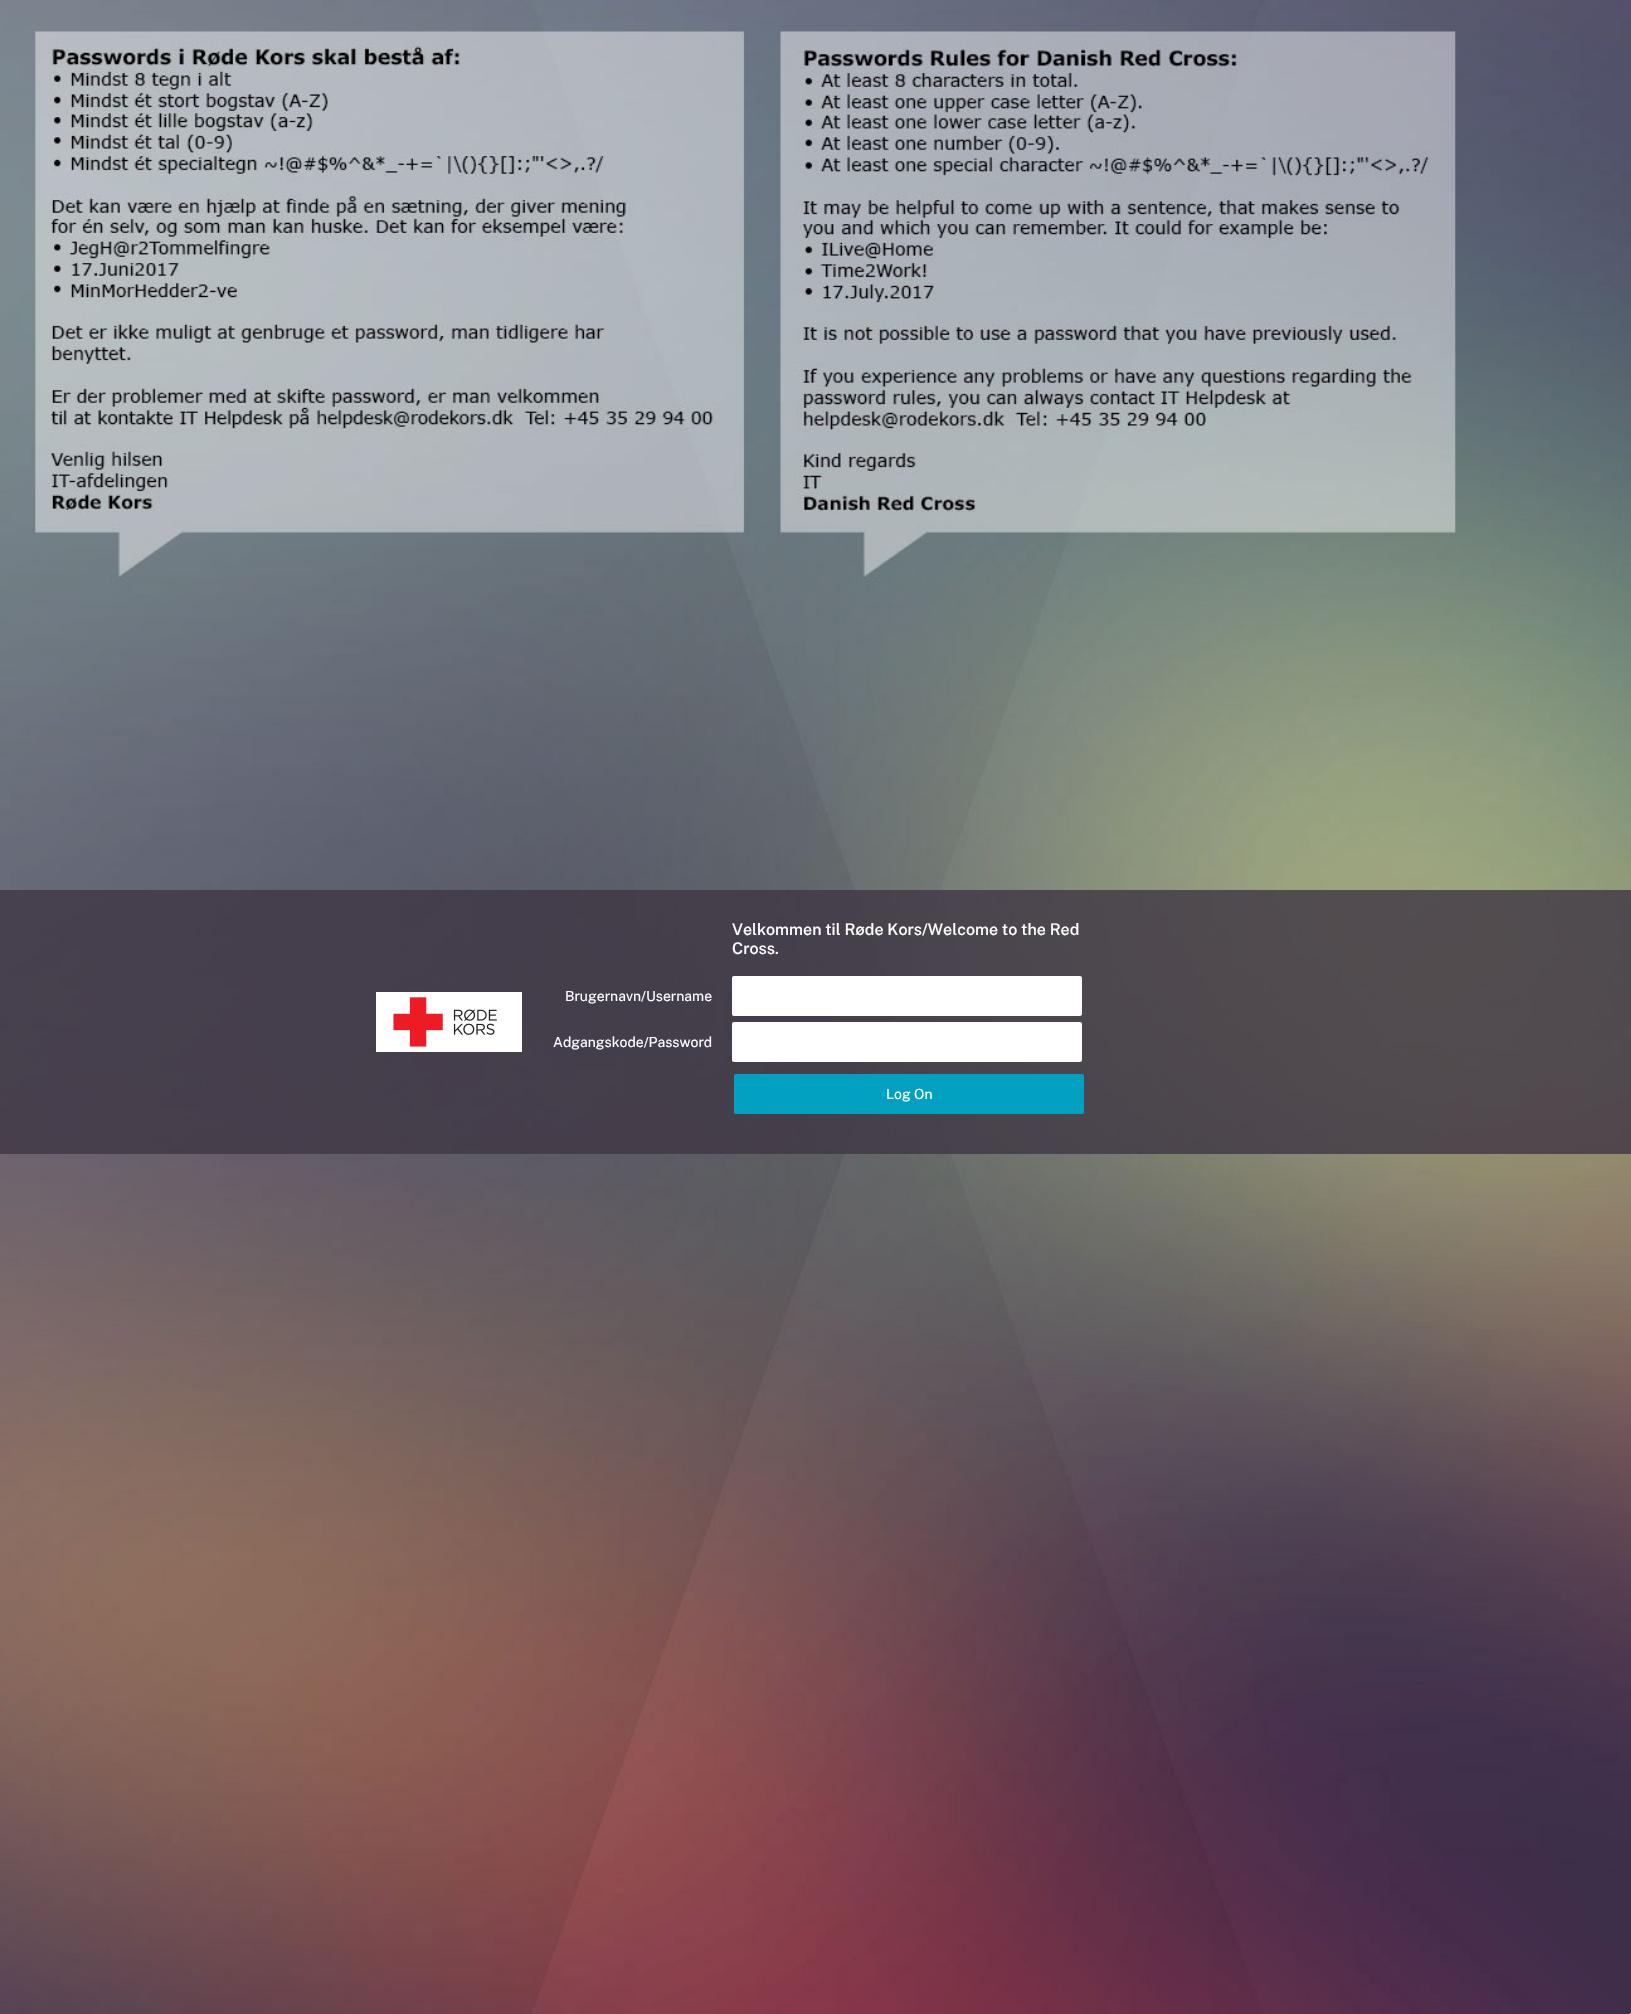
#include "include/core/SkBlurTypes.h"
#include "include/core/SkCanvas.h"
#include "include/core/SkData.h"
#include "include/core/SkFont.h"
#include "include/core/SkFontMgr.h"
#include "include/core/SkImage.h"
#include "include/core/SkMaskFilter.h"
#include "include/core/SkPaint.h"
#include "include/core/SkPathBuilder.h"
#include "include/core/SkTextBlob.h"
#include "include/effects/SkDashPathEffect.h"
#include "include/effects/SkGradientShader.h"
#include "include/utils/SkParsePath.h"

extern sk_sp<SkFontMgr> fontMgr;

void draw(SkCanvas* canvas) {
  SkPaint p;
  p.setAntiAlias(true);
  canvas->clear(SK_ColorWHITE);
  canvas->drawImageRect(SkImages::DeferredFromEncodedData(SkData::MakeFromFileName("images/1.png")), SkRect::MakeLTRB(0, 0, 1631, 2014), SkSamplingOptions());
  p.setColor(SkColorSetARGB(204, 63, 54, 67));
  canvas->drawRect(SkRect::MakeLTRB(0, 890, 1631, 1154), p);
  canvas->drawImageRect(SkImages::DeferredFromEncodedData(SkData::MakeFromFileName("images/2.png")), SkRect::MakeLTRB(376, 992, 522, 1052), SkSamplingOptions());
  p.setColor(SK_ColorWHITE);
  canvas->drawRoundRect(SkRect::MakeLTRB(732, 976, 1082, 1016), 2, 2, p);
  canvas->drawRoundRect(SkRect::MakeLTRB(732, 1022, 1082, 1062), 2, 2, p);
  p.setColor(SkColorSetRGB(2, 161, 193));
  canvas->drawRoundRect(SkRect::MakeLTRB(734, 1074, 1084, 1114), 2, 2, p);
  p.setColor(SkColorSetRGB(203, 203, 203));
  canvas->drawRect(SkRect::MakeLTRB(1630, 2013, 1631, 2014), p);
  SkFont font1(fontMgr->matchFamilyStyle("Public Sans", SkFontStyle(500, SkFontStyle::kNormal_Width, SkFontStyle::kUpright_Slant)), 16);
  font1.setSubpixel(true);
  p.setColor(SK_ColorWHITE);
  canvas->drawString("Velkommen til Røde Kors/Welcome to the Red", 732, 935, font1, p);
  canvas->drawString("Cross.", 732, 954, font1, p);
  SkFont font2(fontMgr->matchFamilyStyle("Public Sans", SkFontStyle::Normal()), 14);
  font2.setSubpixel(true);
  canvas->drawString("Brugernavn/Username", 565, 1001, font2, p);
  canvas->drawString("Adgangskode/Password", 553, 1047, font2, p);
  canvas->drawString("Log On", 886, 1099, font2, p);
}
